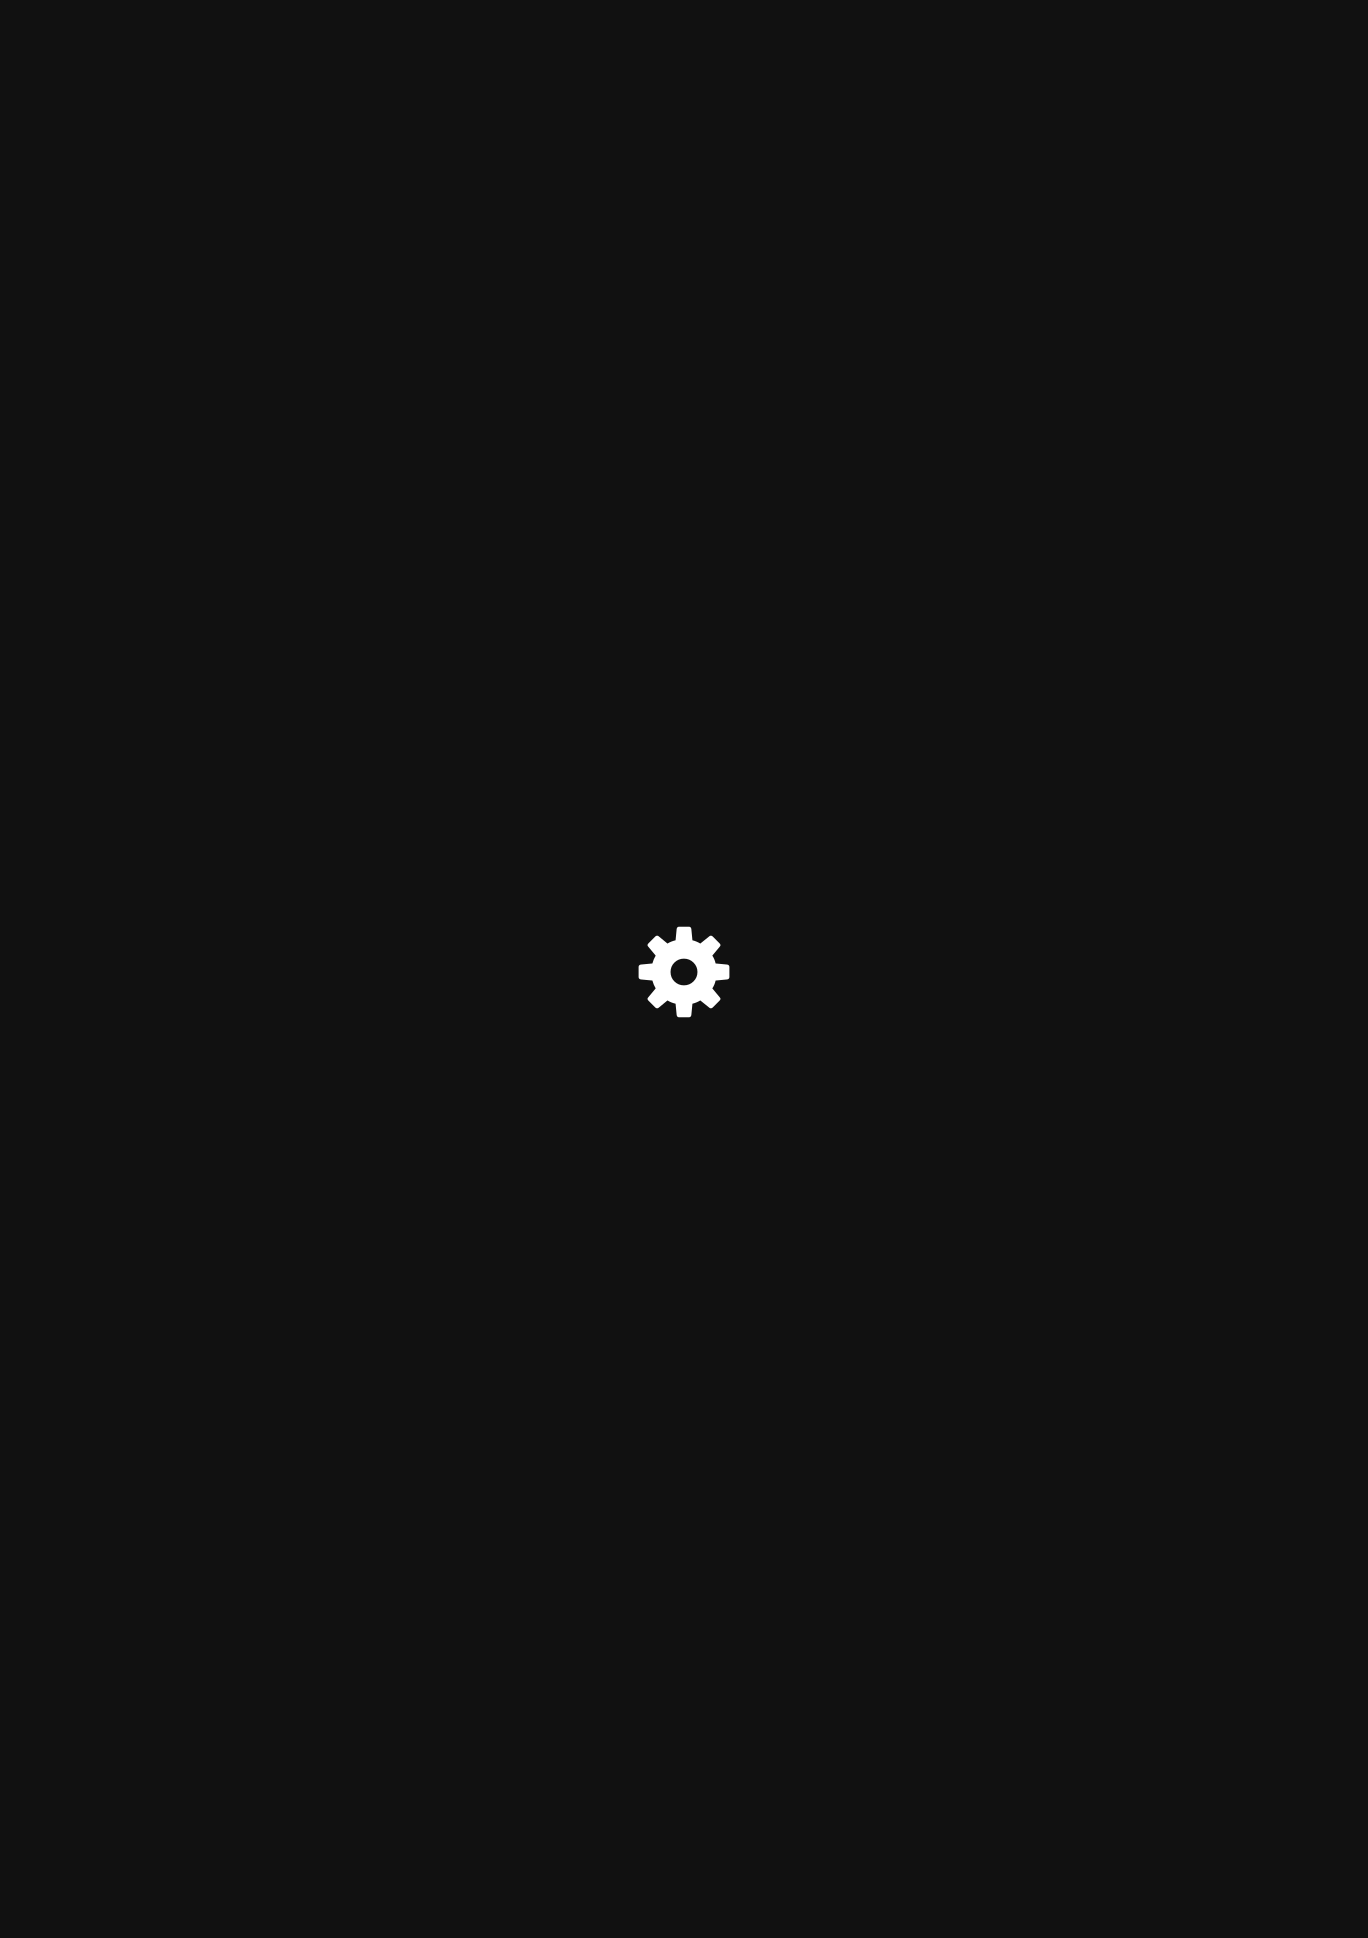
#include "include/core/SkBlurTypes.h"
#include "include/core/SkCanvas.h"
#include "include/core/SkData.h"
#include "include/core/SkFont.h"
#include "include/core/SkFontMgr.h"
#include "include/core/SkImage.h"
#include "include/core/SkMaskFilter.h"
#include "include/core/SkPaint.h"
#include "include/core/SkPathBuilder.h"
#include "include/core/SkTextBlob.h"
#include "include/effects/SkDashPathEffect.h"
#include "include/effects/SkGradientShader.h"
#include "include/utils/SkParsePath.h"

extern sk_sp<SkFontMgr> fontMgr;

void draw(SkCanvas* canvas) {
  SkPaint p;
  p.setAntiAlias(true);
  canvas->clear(SkColorSetRGB(17, 17, 17));
  canvas->drawImageRect(SkImages::DeferredFromEncodedData(SkData::MakeFromFileName("images/1.png")), SkRect::MakeLTRB(638, 926, 730, 1018), SkSamplingOptions());
}
